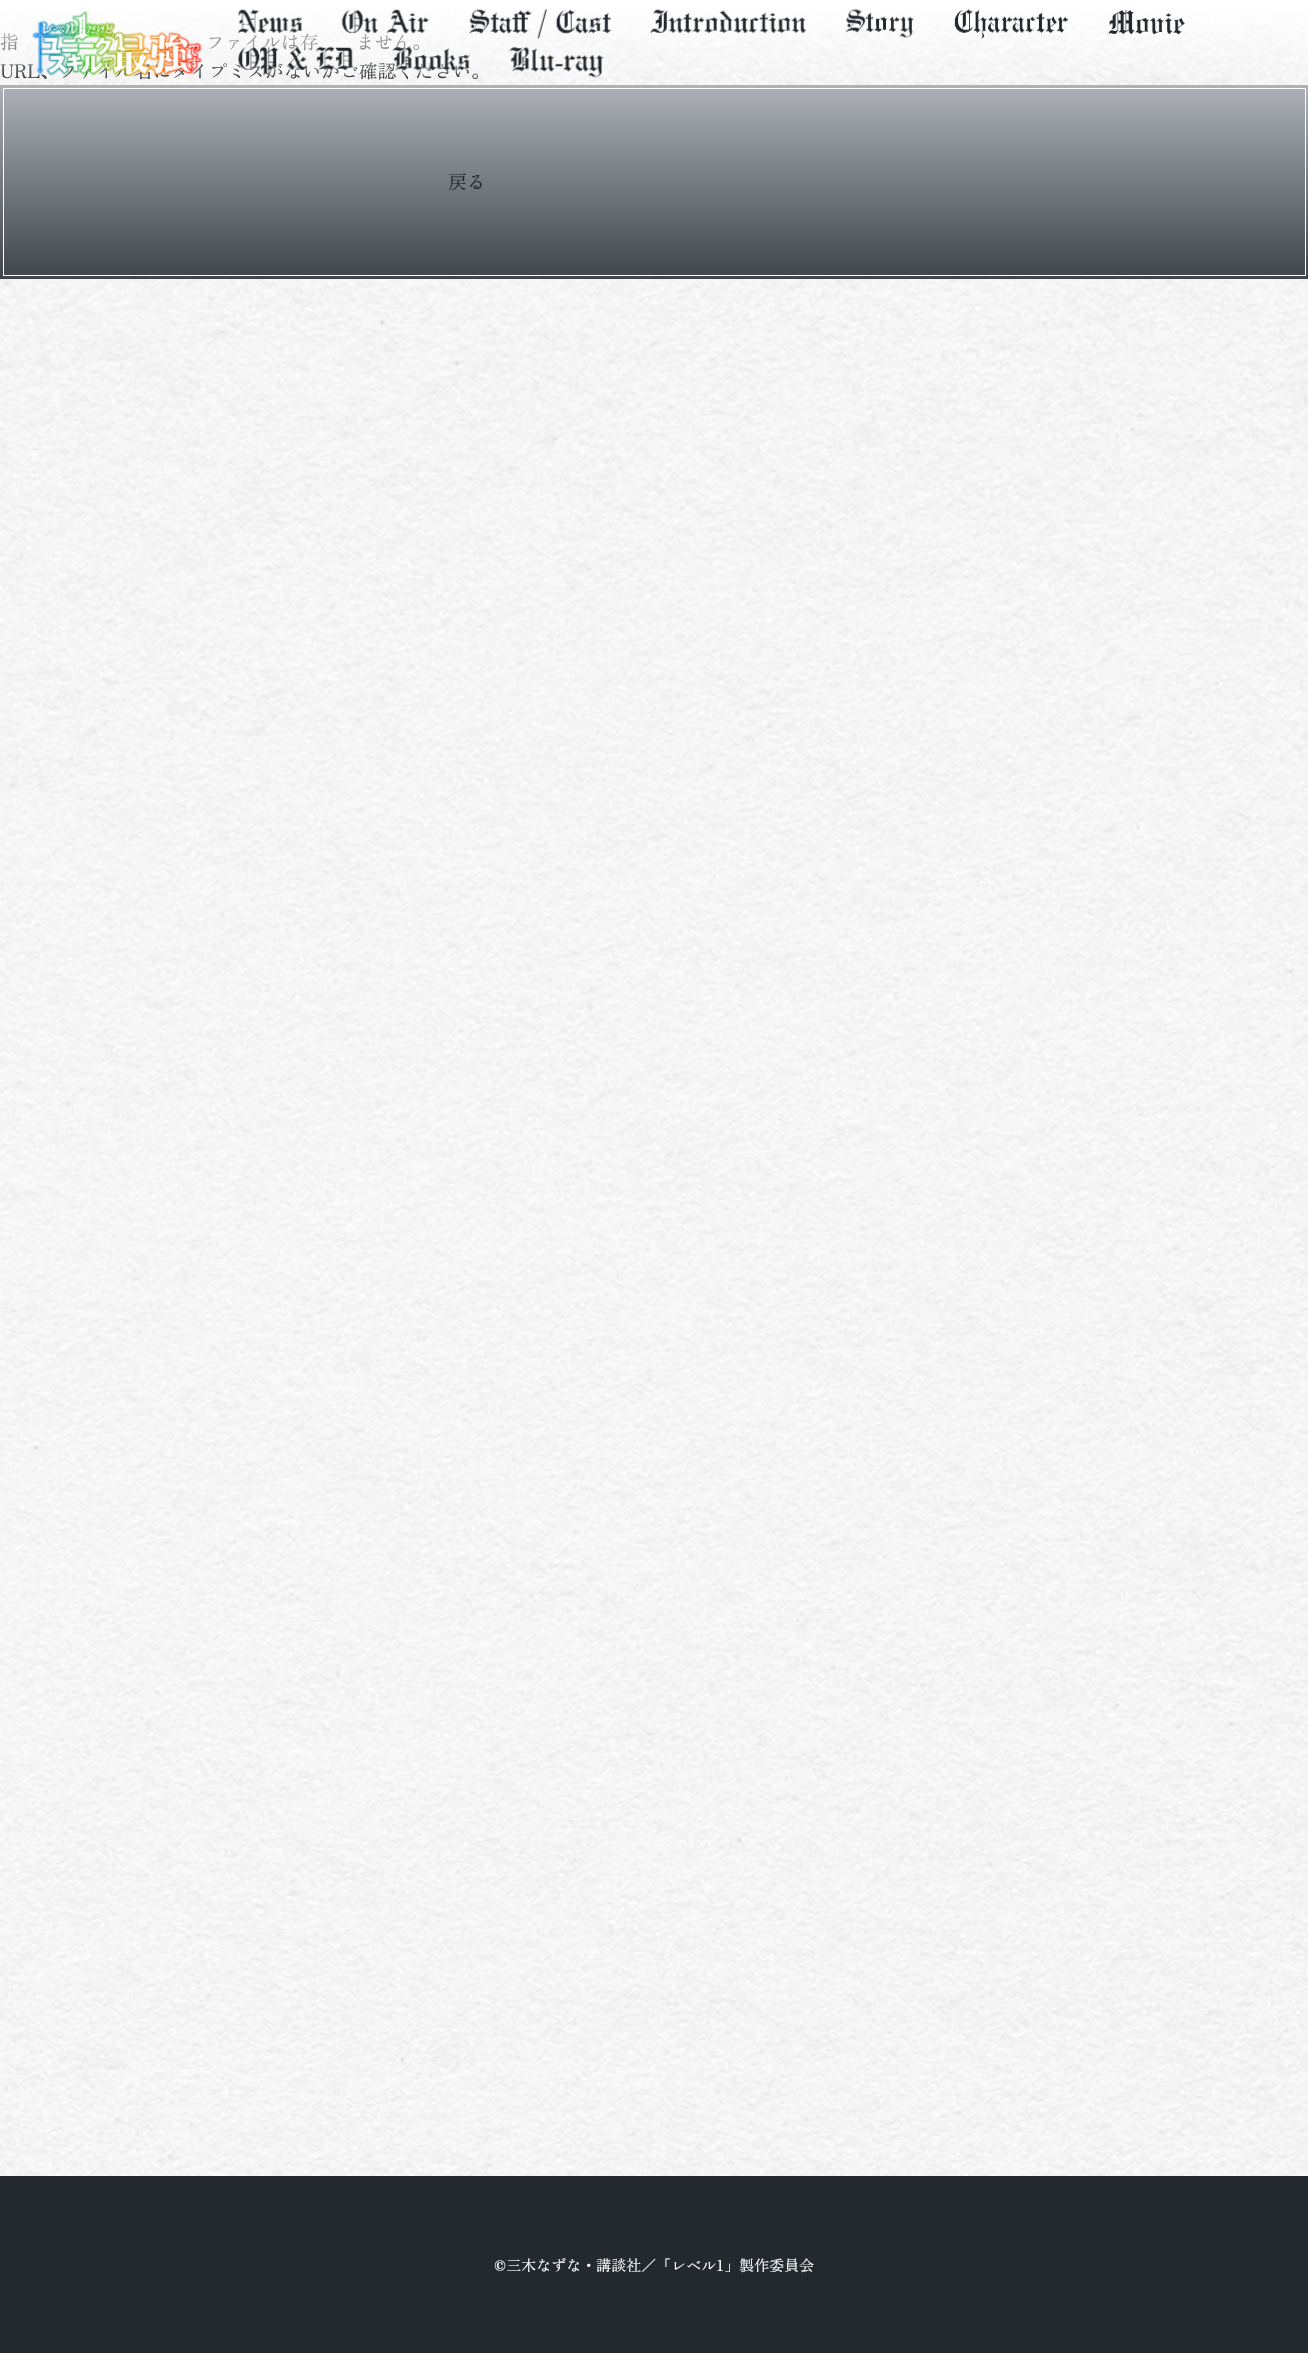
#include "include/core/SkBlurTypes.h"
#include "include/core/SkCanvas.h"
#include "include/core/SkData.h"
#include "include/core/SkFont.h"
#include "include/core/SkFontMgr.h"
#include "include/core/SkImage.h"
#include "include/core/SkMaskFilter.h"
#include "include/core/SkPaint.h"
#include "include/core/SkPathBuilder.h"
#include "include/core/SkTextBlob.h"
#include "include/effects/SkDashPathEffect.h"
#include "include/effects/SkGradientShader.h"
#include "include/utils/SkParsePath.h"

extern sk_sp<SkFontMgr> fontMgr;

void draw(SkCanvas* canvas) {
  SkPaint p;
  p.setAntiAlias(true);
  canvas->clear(SK_ColorWHITE);
  canvas->drawImageRect(SkImages::DeferredFromEncodedData(SkData::MakeFromFileName("images/1.png")), SkRect::MakeLTRB(0, 1, 1308, 2176), SkSamplingOptions());
  {
    const SkColor colors[] = {SkColorSetRGB(174, 178, 184), SkColorSetRGB(64, 68, 75)};
    const float stops[] = {0, 1};
    const SkPoint ends[] = {{654, 85}, {654, 279}};
    p.setShader(SkGradientShader::MakeLinear(ends, colors, stops, 2, SkTileMode::kClamp));
    p.setAlpha(255);
  }
  canvas->drawRect(SkRect::MakeLTRB(0, 85, 1308, 279), p);
  p.setStyle(SkPaint::kStroke_Style);
  p.setStrokeWidth(1);
  p.setShader(nullptr);
  p.setColor(SK_ColorWHITE);
  canvas->drawRect(SkRect::MakeLTRB(3.5f, 88.5f, 1305.5f, 275.5f), p);
  p.setStyle(SkPaint::kFill_Style);
  p.setColor(SkColorSetRGB(36, 40, 47));
  canvas->drawRect(SkRect::MakeLTRB(0, 2176, 1308, 2353), p);
  SkFont font1(fontMgr->matchFamilyStyle("Zen Old Mincho", SkFontStyle::Normal()), 18.75f);
  font1.setSubpixel(true);
  canvas->drawString("指", 0, 49, font1, p);
  canvas->drawString("ファイルは存", 206, 49, font1, p);
  canvas->drawString("ません。", 356, 49, font1, p);
  canvas->drawString("URL、ファイル名にタイプミスがないかご確認ください。", 0, 78, font1, p);
  {
    const SkColor colors[] = {SK_ColorWHITE, SkColorSetARGB(0, 255, 255, 255)};
    const float stops[] = {0, 1};
    const SkPoint ends[] = {{654, 0}, {654, 88}};
    p.setShader(SkGradientShader::MakeLinear(ends, colors, stops, 2, SkTileMode::kClamp));
    p.setAlpha(255);
  }
  canvas->drawRect(SkRect::MakeLTRB(0, 1, 1308, 80), p);
  canvas->drawImageRect(SkImages::DeferredFromEncodedData(SkData::MakeFromFileName("images/2.png")), SkRect::MakeLTRB(32, 10, 203, 77), SkSamplingOptions());
  canvas->drawImageRect(SkImages::DeferredFromEncodedData(SkData::MakeFromFileName("images/12.png")), SkRect::MakeLTRB(509, 47, 604, 78), SkSamplingOptions());
  canvas->drawImageRect(SkImages::DeferredFromEncodedData(SkData::MakeFromFileName("images/11.png")), SkRect::MakeLTRB(392, 44, 470, 73), SkSamplingOptions());
  canvas->drawImageRect(SkImages::DeferredFromEncodedData(SkData::MakeFromFileName("images/10.png")), SkRect::MakeLTRB(236, 44, 355, 78), SkSamplingOptions());
  canvas->drawImageRect(SkImages::DeferredFromEncodedData(SkData::MakeFromFileName("images/9.png")), SkRect::MakeLTRB(1108, 9, 1185, 35), SkSamplingOptions());
  canvas->drawImageRect(SkImages::DeferredFromEncodedData(SkData::MakeFromFileName("images/8.png")), SkRect::MakeLTRB(954, 8, 1068, 39), SkSamplingOptions());
  canvas->drawImageRect(SkImages::DeferredFromEncodedData(SkData::MakeFromFileName("images/7.png")), SkRect::MakeLTRB(845, 8, 914, 38), SkSamplingOptions());
  canvas->drawImageRect(SkImages::DeferredFromEncodedData(SkData::MakeFromFileName("images/6.png")), SkRect::MakeLTRB(650, 9, 806, 33), SkSamplingOptions());
  canvas->drawImageRect(SkImages::DeferredFromEncodedData(SkData::MakeFromFileName("images/5.png")), SkRect::MakeLTRB(468, 8, 611, 39), SkSamplingOptions());
  canvas->drawImageRect(SkImages::DeferredFromEncodedData(SkData::MakeFromFileName("images/4.png")), SkRect::MakeLTRB(341, 9, 429, 34), SkSamplingOptions());
  canvas->drawImageRect(SkImages::DeferredFromEncodedData(SkData::MakeFromFileName("images/3.png")), SkRect::MakeLTRB(237, 9, 302, 34), SkSamplingOptions());
  p.setShader(nullptr);
  p.setColor(SkColorSetRGB(36, 40, 47));
  canvas->drawString("戻る", 448, 189, font1, p);
  SkFont font2(fontMgr->matchFamilyStyle("Zen Old Mincho", SkFontStyle::Normal()), 15);
  font2.setSubpixel(true);
  p.setColor(SK_ColorWHITE);
  canvas->drawString("©三木なずな・講談社／「レベル1」製作委員会", 494, 2271, font2, p);
}
